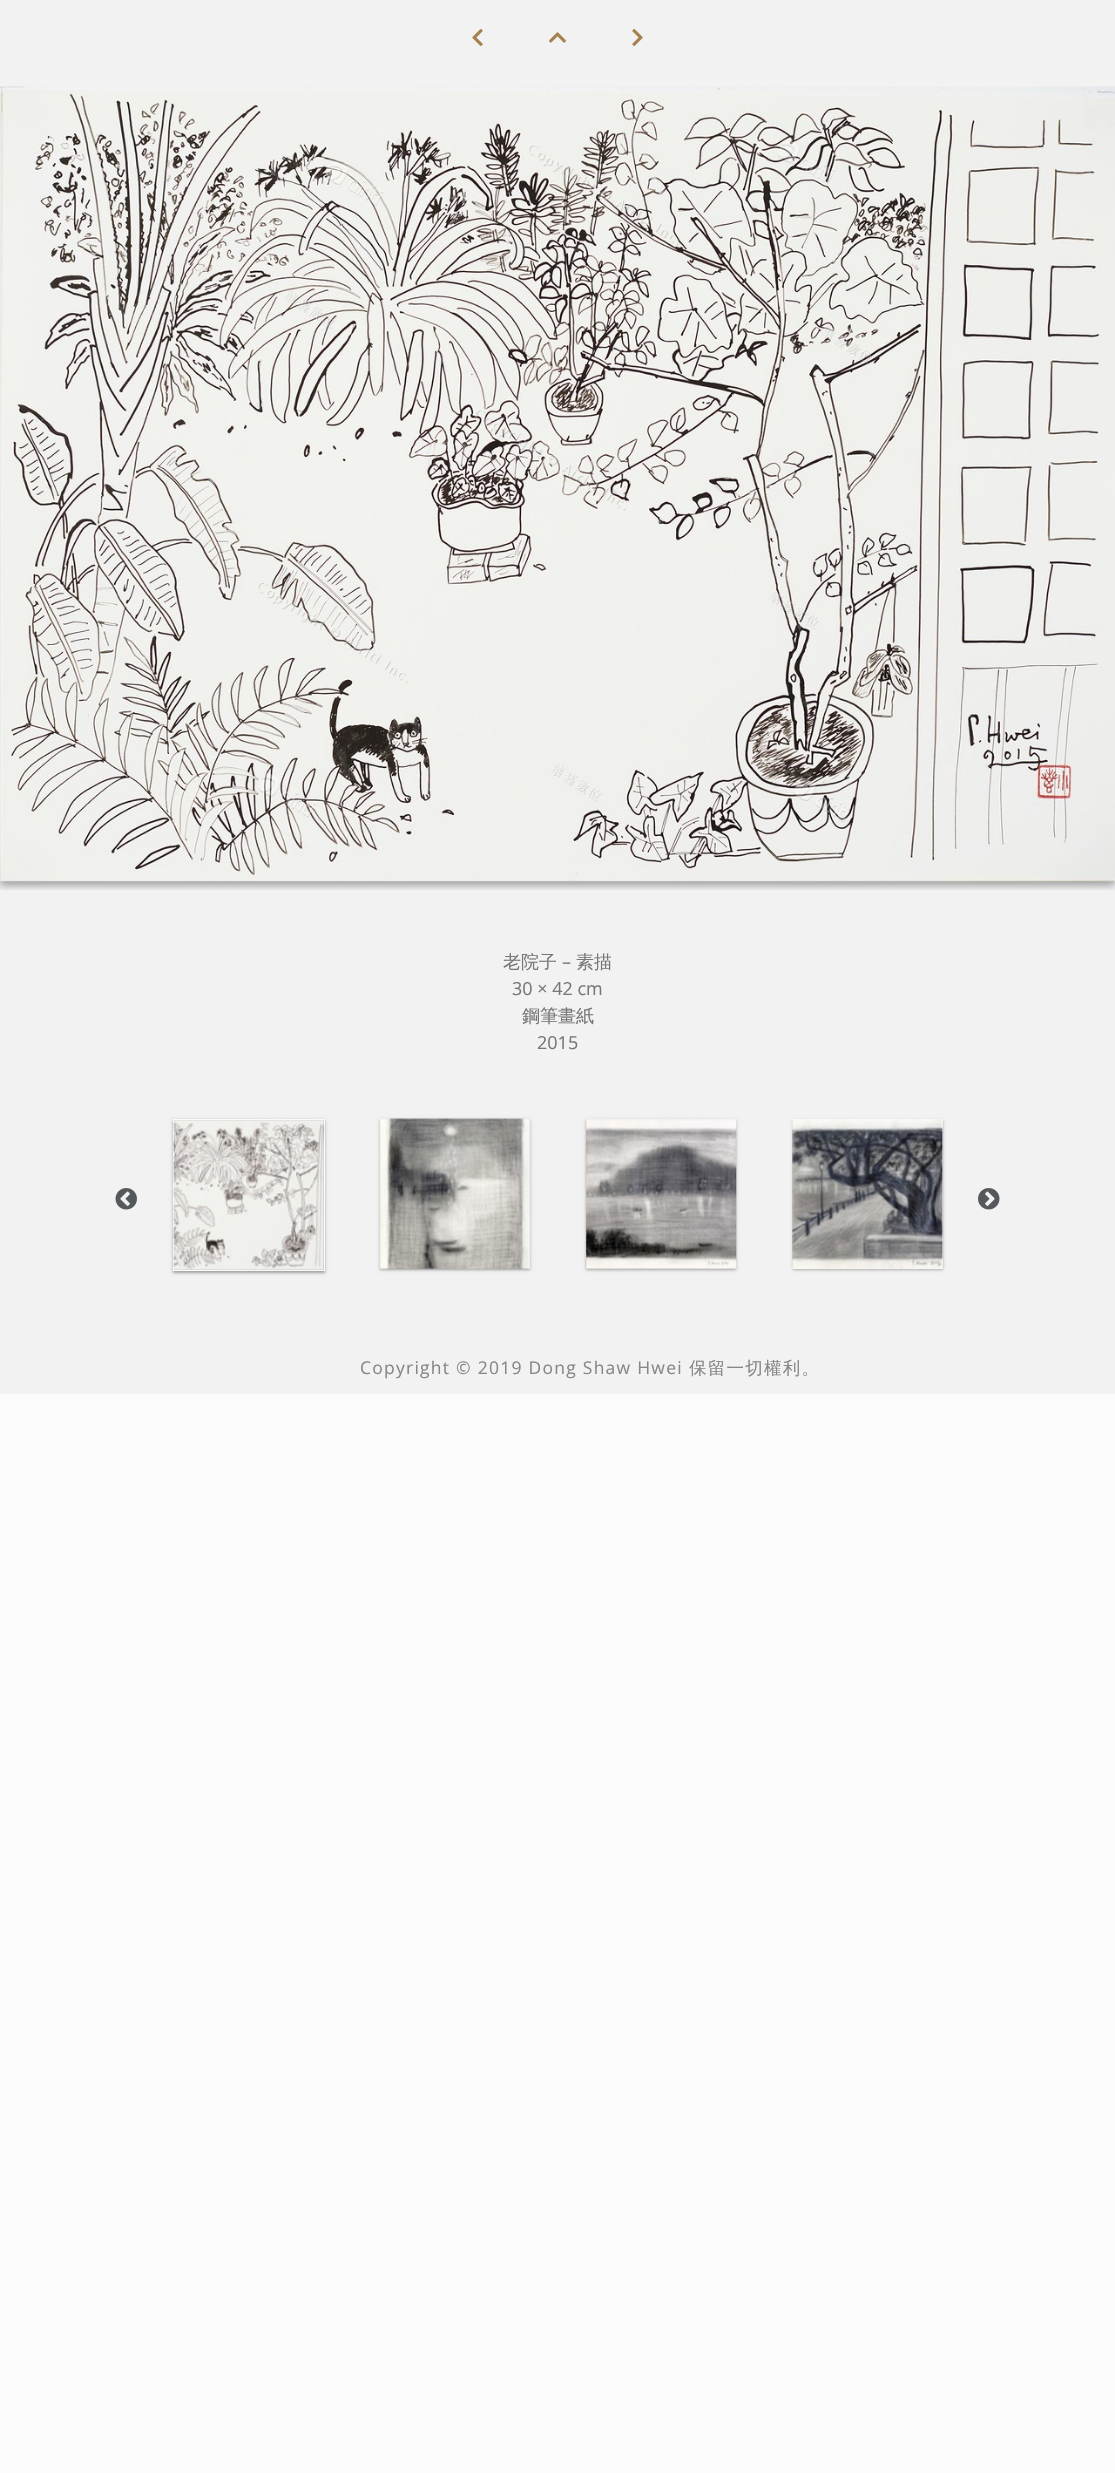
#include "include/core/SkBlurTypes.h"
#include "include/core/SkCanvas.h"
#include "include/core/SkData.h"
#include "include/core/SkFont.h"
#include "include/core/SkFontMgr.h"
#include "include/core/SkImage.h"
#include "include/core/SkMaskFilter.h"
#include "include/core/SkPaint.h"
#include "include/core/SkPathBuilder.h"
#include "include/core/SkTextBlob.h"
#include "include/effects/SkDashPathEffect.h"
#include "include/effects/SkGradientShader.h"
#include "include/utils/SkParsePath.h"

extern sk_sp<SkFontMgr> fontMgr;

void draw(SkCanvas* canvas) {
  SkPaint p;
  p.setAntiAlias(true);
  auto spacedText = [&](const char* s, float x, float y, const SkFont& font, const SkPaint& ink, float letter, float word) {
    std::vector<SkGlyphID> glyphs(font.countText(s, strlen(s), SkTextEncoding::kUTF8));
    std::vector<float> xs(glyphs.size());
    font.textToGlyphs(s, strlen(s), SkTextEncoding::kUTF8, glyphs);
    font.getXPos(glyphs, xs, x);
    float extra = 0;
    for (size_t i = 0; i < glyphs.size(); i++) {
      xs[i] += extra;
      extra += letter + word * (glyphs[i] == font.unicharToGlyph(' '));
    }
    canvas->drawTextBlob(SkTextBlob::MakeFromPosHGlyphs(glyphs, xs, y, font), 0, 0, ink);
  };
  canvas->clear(SkColorSetRGB(252, 252, 252));
  p.setColor(SkColorSetRGB(242, 242, 243));
  canvas->drawRect(SkRect::MakeLTRB(0, 0, 1115, 1394), p);
  canvas->drawImageRect(SkImages::DeferredFromEncodedData(SkData::MakeFromFileName("images/1.png")), SkRect::MakeLTRB(472, 29, 483, 46), SkSamplingOptions());
  canvas->drawImageRect(SkImages::DeferredFromEncodedData(SkData::MakeFromFileName("images/2.png")), SkRect::MakeLTRB(549, 32, 566, 43), SkSamplingOptions());
  canvas->drawImageRect(SkImages::DeferredFromEncodedData(SkData::MakeFromFileName("images/3.png")), SkRect::MakeLTRB(632, 29, 643, 46), SkSamplingOptions());
  canvas->save();
  canvas->clipRect(SkRect::MakeLTRB(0, 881, 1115, 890));
  p.setColor(SkColorSetARGB(59, 0, 0, 0));
  p.setMaskFilter(SkMaskFilter::MakeBlur(kNormal_SkBlurStyle, 4));
  canvas->drawRect(SkRect::MakeLTRB(0, 90, 1115, 885), p);
  p.setMaskFilter(nullptr);
  p.setColor(SkColorSetARGB(41, 0, 0, 0));
  p.setMaskFilter(SkMaskFilter::MakeBlur(kNormal_SkBlurStyle, 4));
  canvas->drawRect(SkRect::MakeLTRB(0, 90, 1115, 885), p);
  p.setMaskFilter(nullptr);
  canvas->restore();
  canvas->drawImageRect(SkImages::DeferredFromEncodedData(SkData::MakeFromFileName("images/4.png")), SkRect::MakeLTRB(0, 86, 1115, 882), SkSamplingOptions());
  canvas->drawImageRect(SkImages::DeferredFromEncodedData(SkData::MakeFromFileName("images/5.png")), SkRect::MakeLTRB(115, 1188, 137, 1210), SkSamplingOptions());
  p.setColor(SkColorSetARGB(31, 0, 0, 0));
  p.setMaskFilter(SkMaskFilter::MakeBlur(kNormal_SkBlurStyle, 2));
  canvas->drawRect(SkRect::MakeLTRB(173, 1120, 325, 1273), p);
  p.setMaskFilter(nullptr);
  p.setColor(SkColorSetARGB(61, 0, 0, 0));
  p.setMaskFilter(SkMaskFilter::MakeBlur(kNormal_SkBlurStyle, 1));
  canvas->drawRect(SkRect::MakeLTRB(173, 1120, 325, 1273), p);
  p.setMaskFilter(nullptr);
  p.setStyle(SkPaint::kStroke_Style);
  p.setStrokeWidth(1);
  p.setColor(SK_ColorWHITE);
  canvas->drawRect(SkRect::MakeLTRB(173.5f, 1119.5f, 324.5f, 1270.5f), p);
  canvas->drawImageRect(SkImages::DeferredFromEncodedData(SkData::MakeFromFileName("images/6.png")), SkRect::MakeLTRB(173, 1119, 325, 1271), SkSamplingOptions());
  p.setStyle(SkPaint::kFill_Style);
  p.setColor(SkColorSetARGB(31, 0, 0, 0));
  p.setMaskFilter(SkMaskFilter::MakeBlur(kNormal_SkBlurStyle, 2));
  canvas->drawRect(SkRect::MakeLTRB(380, 1120, 530, 1270), p);
  p.setMaskFilter(nullptr);
  p.setColor(SkColorSetARGB(61, 0, 0, 0));
  p.setMaskFilter(SkMaskFilter::MakeBlur(kNormal_SkBlurStyle, 1));
  canvas->drawRect(SkRect::MakeLTRB(380, 1120, 530, 1270), p);
  p.setMaskFilter(nullptr);
  canvas->drawImageRect(SkImages::DeferredFromEncodedData(SkData::MakeFromFileName("images/7.png")), SkRect::MakeLTRB(379, 1118, 531, 1270), SkSamplingOptions());
  p.setColor(SkColorSetARGB(31, 0, 0, 0));
  p.setMaskFilter(SkMaskFilter::MakeBlur(kNormal_SkBlurStyle, 2));
  canvas->drawRect(SkRect::MakeLTRB(586, 1120, 736, 1270), p);
  p.setMaskFilter(nullptr);
  p.setColor(SkColorSetARGB(61, 0, 0, 0));
  p.setMaskFilter(SkMaskFilter::MakeBlur(kNormal_SkBlurStyle, 1));
  canvas->drawRect(SkRect::MakeLTRB(586, 1120, 736, 1270), p);
  p.setMaskFilter(nullptr);
  canvas->drawImageRect(SkImages::DeferredFromEncodedData(SkData::MakeFromFileName("images/8.png")), SkRect::MakeLTRB(586, 1118, 737, 1270), SkSamplingOptions());
  canvas->save();
  canvas->clipPath(SkPathBuilder(SkPathFillType::kEvenOdd).moveTo(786, 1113).lineTo(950, 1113).lineTo(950, 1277).lineTo(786, 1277).close().moveTo(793, 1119).lineTo(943, 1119).lineTo(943, 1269).lineTo(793, 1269).close().detach(), true);
  p.setColor(SkColorSetARGB(31, 15, 15, 15));
  p.setMaskFilter(SkMaskFilter::MakeBlur(kNormal_SkBlurStyle, 2));
  canvas->drawRect(SkRect::MakeLTRB(793, 1120, 943, 1270), p);
  p.setMaskFilter(nullptr);
  canvas->restore();
  canvas->save();
  canvas->clipPath(SkPathBuilder(SkPathFillType::kEvenOdd).moveTo(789, 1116).lineTo(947, 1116).lineTo(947, 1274).lineTo(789, 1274).close().moveTo(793, 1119).lineTo(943, 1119).lineTo(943, 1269).lineTo(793, 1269).close().detach(), true);
  p.setColor(SkColorSetARGB(61, 15, 15, 15));
  p.setMaskFilter(SkMaskFilter::MakeBlur(kNormal_SkBlurStyle, 1));
  canvas->drawRect(SkRect::MakeLTRB(793, 1120, 943, 1270), p);
  p.setMaskFilter(nullptr);
  canvas->restore();
  canvas->drawImageRect(SkImages::DeferredFromEncodedData(SkData::MakeFromFileName("images/9.png")), SkRect::MakeLTRB(792, 1118, 943, 1270), SkSamplingOptions());
  canvas->drawImageRect(SkImages::DeferredFromEncodedData(SkData::MakeFromFileName("images/10.png")), SkRect::MakeLTRB(978, 1188, 1000, 1210), SkSamplingOptions());
  SkFont font1(fontMgr->matchFamilyStyle("WenQuanYi Zen Hei", SkFontStyle(500, SkFontStyle::kNormal_Width, SkFontStyle::kUpright_Slant)), 18);
  font1.setSubpixel(true);
  p.setColor(SkColorSetRGB(119, 119, 119));
  canvas->drawString("老院子", 503, 968, font1, p);
  SkFont font2(fontMgr->matchFamilyStyle("Open Sans", SkFontStyle::Normal()), 18);
  font2.setSubpixel(true);
  canvas->drawString("–", 562, 968, font2, p);
  canvas->drawString("素描", 576, 968, font1, p);
  canvas->drawString("30 × 42 cm", 512, 995, font2, p);
  canvas->drawString("鋼筆畫紙", 522, 1022, font1, p);
  canvas->drawString("2015", 537, 1049, font2, p);
  SkFont font3(fontMgr->matchFamilyStyle("Open Sans", SkFontStyle::Normal()), 17.5f);
  font3.setSubpixel(true);
  p.setColor(SkColorSetRGB(135, 135, 135));
  spacedText("Copyright © 2019 Dong Shaw Hwei", 360, 1374, font3, p, 1.25f, 0);
  SkFont font4(fontMgr->matchFamilyStyle("WenQuanYi Zen Hei", SkFontStyle(500, SkFontStyle::kNormal_Width, SkFontStyle::kUpright_Slant)), 17.5f);
  font4.setSubpixel(true);
  spacedText("保留一切權利。", 689, 1374, font4, p, 1.25f, 0);
}
